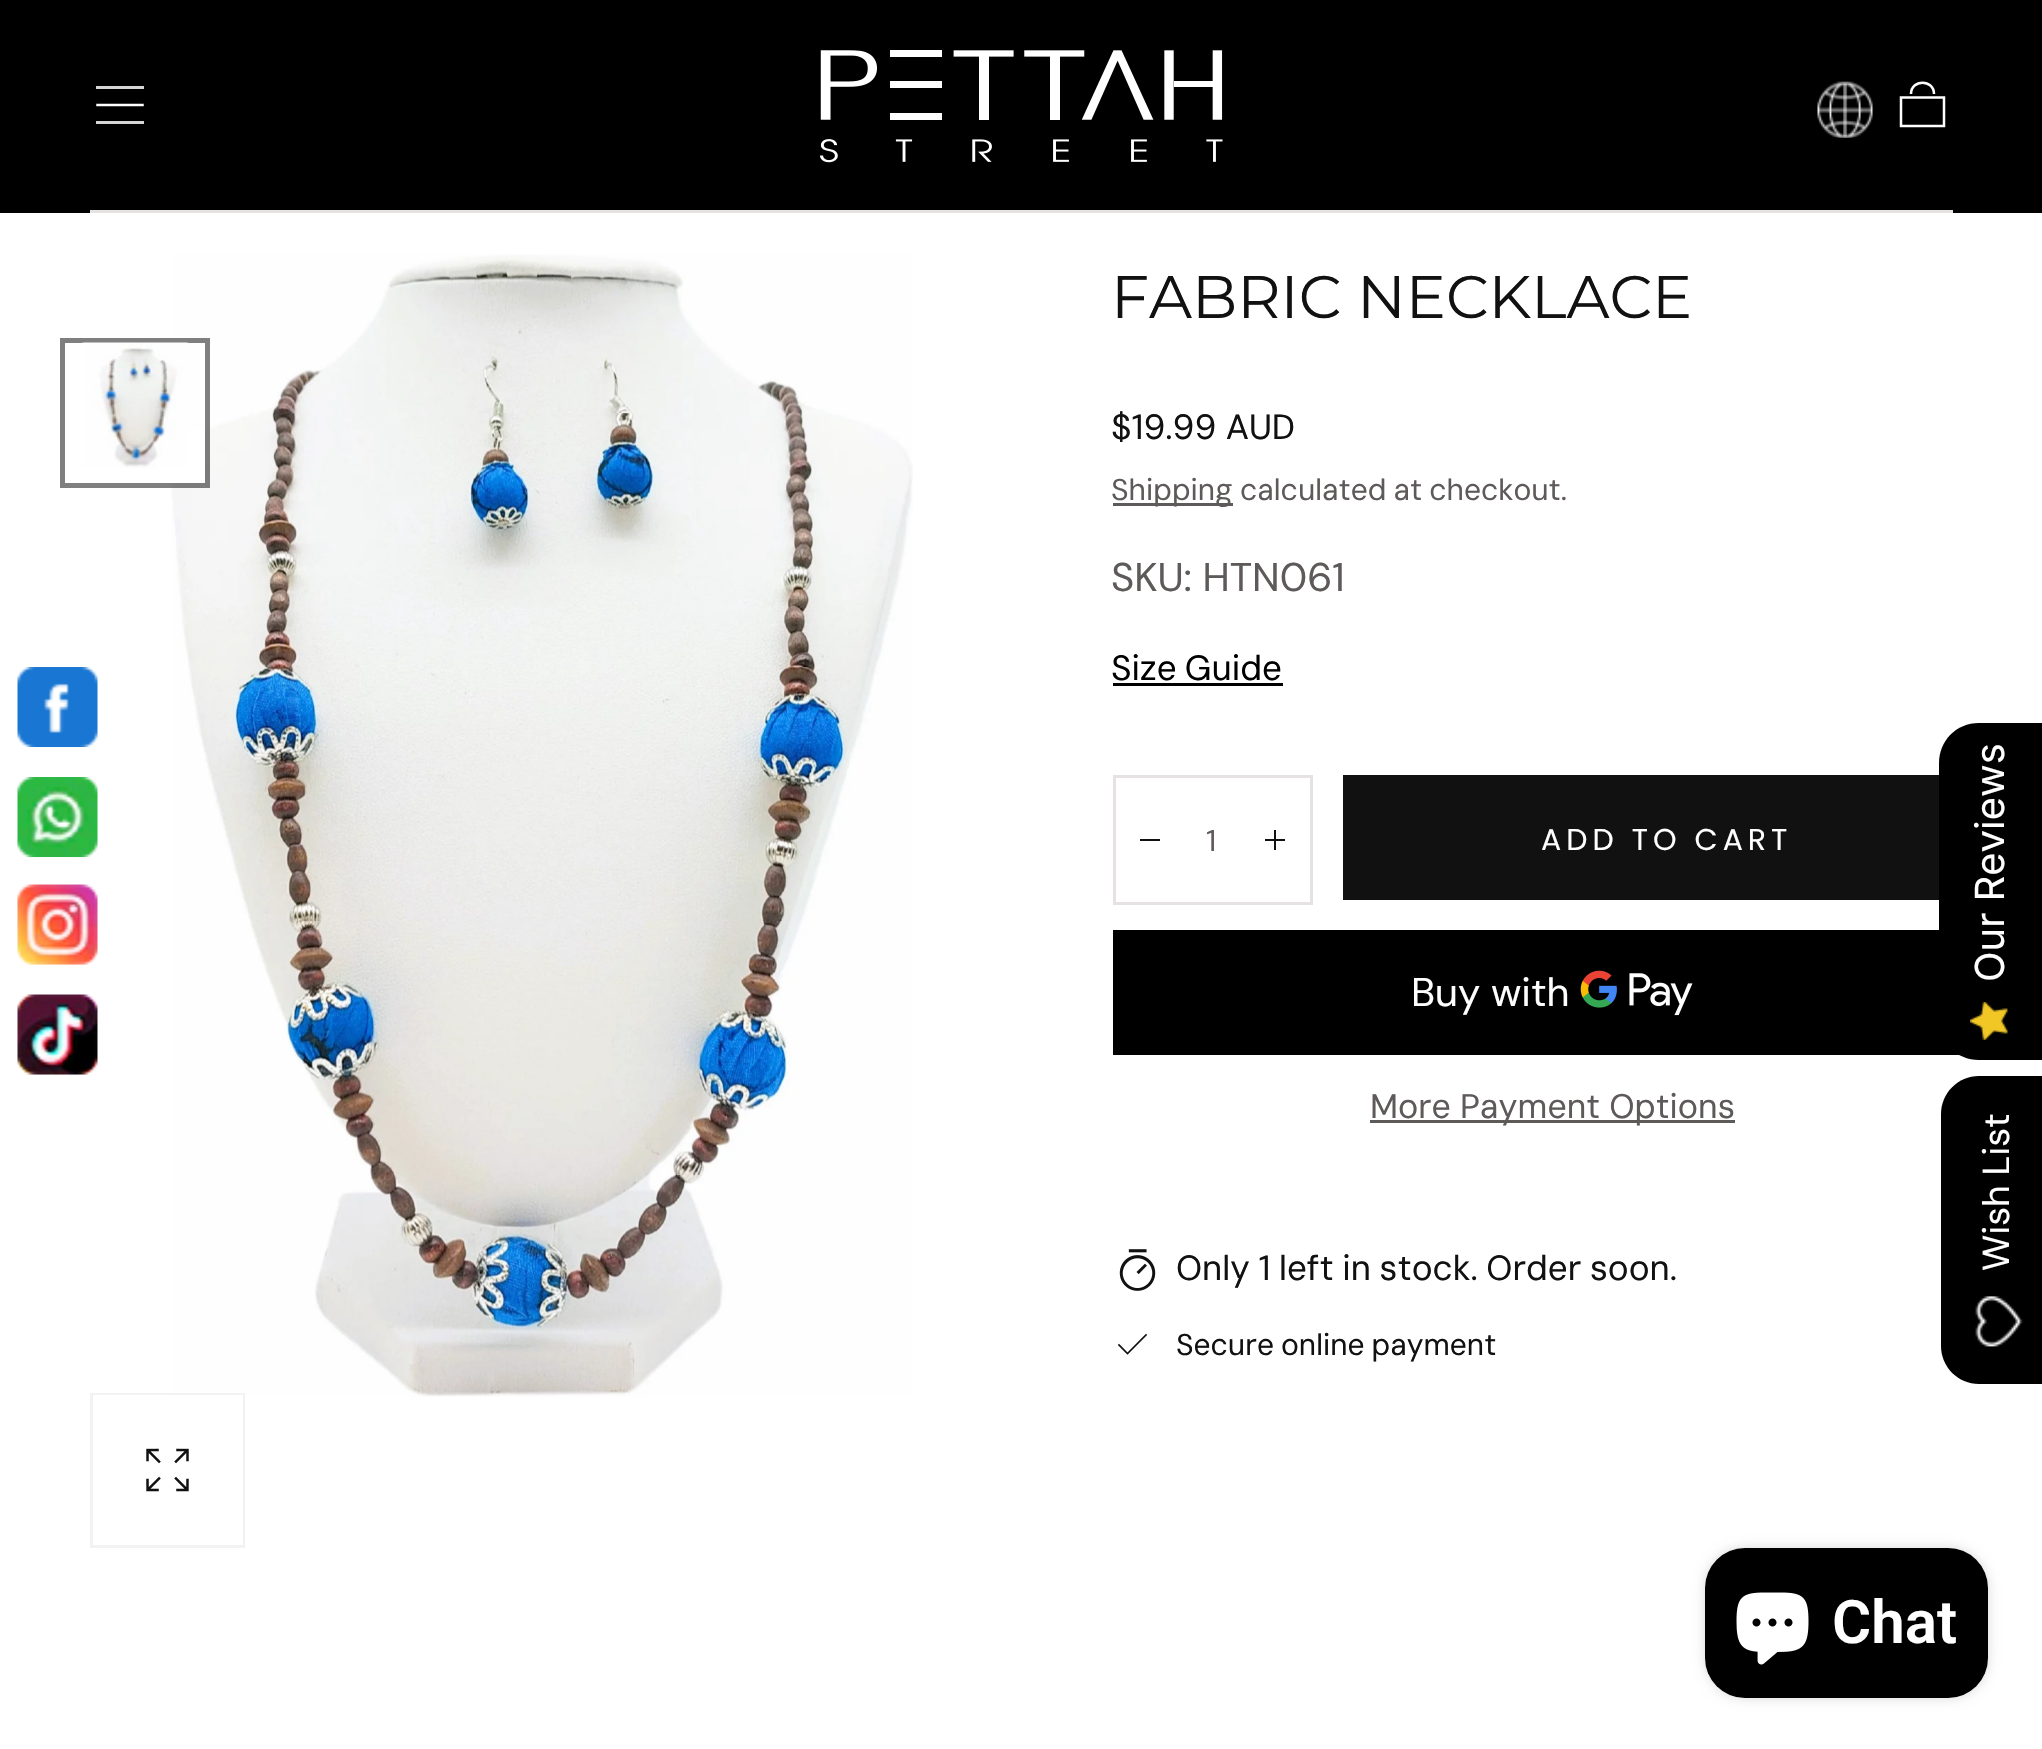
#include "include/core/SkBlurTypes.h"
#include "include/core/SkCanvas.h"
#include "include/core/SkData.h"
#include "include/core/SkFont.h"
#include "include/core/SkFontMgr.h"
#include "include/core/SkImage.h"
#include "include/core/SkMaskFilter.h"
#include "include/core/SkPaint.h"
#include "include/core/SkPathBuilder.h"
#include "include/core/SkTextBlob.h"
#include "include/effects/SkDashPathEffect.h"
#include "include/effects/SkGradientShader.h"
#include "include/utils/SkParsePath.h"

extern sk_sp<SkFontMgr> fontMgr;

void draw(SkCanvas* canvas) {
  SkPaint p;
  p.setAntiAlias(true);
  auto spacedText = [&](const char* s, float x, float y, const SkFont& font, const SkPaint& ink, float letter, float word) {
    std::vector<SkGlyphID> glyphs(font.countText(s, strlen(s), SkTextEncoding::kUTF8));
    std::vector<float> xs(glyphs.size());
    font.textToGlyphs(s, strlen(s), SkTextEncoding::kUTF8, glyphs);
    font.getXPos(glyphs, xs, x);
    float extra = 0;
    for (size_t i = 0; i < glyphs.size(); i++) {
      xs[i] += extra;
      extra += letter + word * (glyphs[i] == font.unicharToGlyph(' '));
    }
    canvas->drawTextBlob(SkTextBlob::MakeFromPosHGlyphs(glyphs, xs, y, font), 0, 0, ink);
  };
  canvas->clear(SK_ColorWHITE);
  canvas->drawImageRect(SkImages::DeferredFromEncodedData(SkData::MakeFromFileName("images/1.png")), SkRect::MakeLTRB(171, 254, 913, 1397), SkSamplingOptions());
  p.setStyle(SkPaint::kStroke_Style);
  p.setStrokeWidth(3);
  p.setColor(SkColorSetRGB(242, 242, 242));
  canvas->drawRect(SkRect::MakeLTRB(91.5f, 1394.5f, 243.5f, 1546.5f), p);
  p.setStyle(SkPaint::kFill_Style);
  p.setColor(SK_ColorWHITE);
  canvas->drawRect(SkRect::MakeLTRB(93, 1395, 243, 1545), p);
  canvas->drawImageRect(SkImages::DeferredFromEncodedData(SkData::MakeFromFileName("images/2.png")), SkRect::MakeLTRB(146, 1448, 189, 1492), SkSamplingOptions());
  p.setStyle(SkPaint::kStroke_Style);
  p.setStrokeWidth(5);
  p.setColor(SkColorSetARGB(128, 0, 0, 0));
  canvas->drawRect(SkRect::MakeLTRB(62.5f, 340.5f, 207.5f, 485.5f), p);
  p.setStyle(SkPaint::kFill_Style);
  p.setColor(SK_ColorWHITE);
  canvas->drawRect(SkRect::MakeLTRB(171, 430, 205, 483), p);
  canvas->drawImageRect(SkImages::DeferredFromEncodedData(SkData::MakeFromFileName("images/3.png")), SkRect::MakeLTRB(81, 342, 189, 468), SkSamplingOptions());
  p.setColor(SkColorSetRGB(94, 90, 89));
  canvas->drawRect(SkRect::MakeLTRB(1113, 503, 1233, 506), p);
  p.setColor(SK_ColorBLACK);
  canvas->drawRect(SkRect::MakeLTRB(1113, 683, 1283, 686), p);
  p.setStyle(SkPaint::kStroke_Style);
  p.setStrokeWidth(3);
  p.setColor(SkColorSetRGB(230, 226, 225));
  canvas->drawRect(SkRect::MakeLTRB(1114.5f, 776.5f, 1311.5f, 903.5f), p);
  p.setStyle(SkPaint::kFill_Style);
  p.setColor(SkColorSetRGB(17, 17, 17));
  canvas->drawRect(SkRect::MakeLTRB(1140, 839, 1160, 841), p);
  canvas->drawRect(SkRect::MakeLTRB(1274, 830, 1276, 850), p);
  canvas->drawRect(SkRect::MakeLTRB(1265, 839, 1285, 841), p);
  canvas->drawRect(SkRect::MakeLTRB(1343, 775, 1939, 900), p);
  p.setColor(SK_ColorBLACK);
  canvas->drawRect(SkRect::MakeLTRB(1113, 930, 1960, 1055), p);
  canvas->drawImageRect(SkImages::DeferredFromEncodedData(SkData::MakeFromFileName("images/4.png")), SkRect::MakeLTRB(1580, 970, 1693, 1016), SkSamplingOptions());
  p.setColor(SkColorSetRGB(94, 90, 89));
  canvas->drawRect(SkRect::MakeLTRB(1370, 1120, 1735, 1123), p);
  canvas->drawImageRect(SkImages::DeferredFromEncodedData(SkData::MakeFromFileName("images/5.png")), SkRect::MakeLTRB(1119, 1249, 1156, 1291), SkSamplingOptions());
  p.setStyle(SkPaint::kStroke_Style);
  p.setStrokeWidth(1.7f);
  p.setStrokeCap(SkPaint::kSquare_Cap);
  p.setColor(SkColorSetRGB(17, 17, 17));
  canvas->drawPath(SkPathBuilder().moveTo(1146, 1335).lineTo(1127.5f, 1353.5f).lineTo(1119, 1345).detach(), p);
  p.setStyle(SkPaint::kFill_Style);
  p.setColor(SK_ColorBLACK);
  canvas->drawPath(SkPathBuilder().moveTo(1939, 1020).lineTo(1939, 763).cubicTo(1939, 741, 1956, 723, 1979, 723).lineTo(2042, 723).lineTo(2042, 1060).lineTo(1979, 1060).cubicTo(1956, 1060, 1939, 1042, 1939, 1020).close().detach(), p);
  canvas->drawImageRect(SkImages::DeferredFromEncodedData(SkData::MakeFromFileName("images/6.png")), SkRect::MakeLTRB(1969, 1002, 2008, 1040), SkSamplingOptions());
  canvas->drawRect(SkRect::MakeLTRB(0, 0, 2042, 213), p);
  p.setColor(SkColorSetRGB(213, 213, 213));
  canvas->drawRect(SkRect::MakeLTRB(96, 86, 144, 89), p);
  p.setStyle(SkPaint::kStroke_Style);
  p.setStrokeWidth(2.5f);
  p.setColor(SK_ColorWHITE);
  canvas->drawPath(SkPathBuilder().moveTo(97.5f, 105).lineTo(142.5f, 105).detach(), p);
  p.setStyle(SkPaint::kFill_Style);
  p.setColor(SkColorSetRGB(213, 213, 213));
  canvas->drawRect(SkRect::MakeLTRB(96, 121, 144, 124), p);
  canvas->drawImageRect(SkImages::DeferredFromEncodedData(SkData::MakeFromFileName("images/7.png")), SkRect::MakeLTRB(820, 50, 1223, 163), SkSamplingOptions());
  canvas->drawImageRect(SkImages::DeferredFromEncodedData(SkData::MakeFromFileName("images/8.png")), SkRect::MakeLTRB(1817, 81, 1873, 138), SkSamplingOptions());
  p.setStyle(SkPaint::kStroke_Style);
  p.setStrokeCap(SkPaint::kButt_Cap);
  p.setColor(SK_ColorWHITE);
  canvas->drawPath(SkPathBuilder().moveTo(1944, 126).lineTo(1901, 126).lineTo(1901, 97.5f).lineTo(1944, 97.5f).close().moveTo(1934, 94).cubicTo(1934, 79, 1911, 79, 1911, 94).detach(), p);
  p.setStyle(SkPaint::kFill_Style);
  p.setColor(SkColorSetRGB(230, 226, 225));
  canvas->drawRect(SkRect::MakeLTRB(90, 210, 1953, 213), p);
  canvas->drawImageRect(SkImages::DeferredFromEncodedData(SkData::MakeFromFileName("images/9.png")), SkRect::MakeLTRB(17, 667, 98, 748), SkSamplingOptions());
  canvas->drawImageRect(SkImages::DeferredFromEncodedData(SkData::MakeFromFileName("images/10.png")), SkRect::MakeLTRB(17, 777, 98, 858), SkSamplingOptions());
  canvas->drawImageRect(SkImages::DeferredFromEncodedData(SkData::MakeFromFileName("images/11.png")), SkRect::MakeLTRB(17, 884, 98, 965), SkSamplingOptions());
  canvas->drawImageRect(SkImages::DeferredFromEncodedData(SkData::MakeFromFileName("images/12.png")), SkRect::MakeLTRB(17, 994, 98, 1075), SkSamplingOptions());
  p.setColor(SK_ColorBLACK);
  canvas->drawPath(SkPathBuilder().moveTo(1941, 1346).lineTo(1941, 1114).cubicTo(1941, 1093, 1958, 1076, 1979, 1076).lineTo(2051, 1076).lineTo(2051, 1384).lineTo(1979, 1384).cubicTo(1958, 1384, 1941, 1367, 1941, 1346).close().detach(), p);
  canvas->drawImageRect(SkImages::DeferredFromEncodedData(SkData::MakeFromFileName("images/13.png")), SkRect::MakeLTRB(1975, 1296, 2023, 1347), SkSamplingOptions());
  p.setColor(SkColorSetARGB(38, 0, 0, 0));
  p.setMaskFilter(SkMaskFilter::MakeBlur(kNormal_SkBlurStyle, 6));
  canvas->drawRoundRect(SkRect::MakeLTRB(1705, 1548, 1988, 1698), 40, 40, p);
  p.setMaskFilter(nullptr);
  p.setColor(SK_ColorBLACK);
  canvas->drawRoundRect(SkRect::MakeLTRB(1705, 1548, 1988, 1698), 40, 40, p);
  canvas->drawImageRect(SkImages::DeferredFromEncodedData(SkData::MakeFromFileName("images/14.png")), SkRect::MakeLTRB(1736, 1592, 1809, 1665), SkSamplingOptions());
  SkFont font1(fontMgr->matchFamilyStyle("Montserrat", SkFontStyle::Normal()), 60);
  font1.setSubpixel(true);
  p.setColor(SkColorSetRGB(17, 17, 17));
  canvas->drawString("FABRIC NECKLACE", 1111, 318, font1, p);
  SkFont font2(fontMgr->matchFamilyStyle("DM Sans", SkFontStyle::Normal()), 35);
  font2.setSubpixel(true);
  canvas->drawString("$19.99 AUD", 1111, 439, font2, p);
  SkFont font3(fontMgr->matchFamilyStyle("DM Sans", SkFontStyle::Normal()), 30);
  font3.setSubpixel(true);
  p.setColor(SkColorSetRGB(94, 90, 89));
  canvas->drawString("Shipping", 1111, 500, font3, p);
  spacedText("calculated at checkout.", 1240, 500, font3, p, 0, -1);
  SkFont font4(fontMgr->matchFamilyStyle("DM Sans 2", SkFontStyle::Normal()), 40);
  font4.setSubpixel(true);
  canvas->drawString("SKU: HTN061", 1111, 591, font4, p);
  p.setColor(SK_ColorBLACK);
  spacedText("Size Guide", 1111, 680, font2, p, 0, -1);
  p.setColor(SkColorSetRGB(94, 90, 89));
  canvas->drawString("1", 1206, 851, font3, p);
  SkFont font5(fontMgr->matchFamilyStyle("Poppins", SkFontStyle::Normal()), 30);
  font5.setSubpixel(true);
  p.setColor(SK_ColorWHITE);
  spacedText("ADD TO CART", 1541, 850, font5, p, 5, 0);
  canvas->drawString("Buy with", 1411, 1006, font4, p);
  SkFont font6(fontMgr->matchFamilyStyle("DM Sans", SkFontStyle::Normal()), 34);
  font6.setSubpixel(true);
  p.setColor(SkColorSetRGB(94, 90, 89));
  canvas->drawString("More Payment Options", 1370, 1118, font6, p);
  p.setColor(SkColorSetRGB(17, 17, 17));
  spacedText("Only 1 left in stock. Order soon.", 1176, 1280, font2, p, 0, -0.75f);
  spacedText("Secure online payment", 1176, 1355, font3, p, 0, -1);
  SkFont font7(fontMgr->matchFamilyStyle("Inter", SkFontStyle::Normal()), 40);
  font7.setSubpixel(true);
  p.setColor(SK_ColorWHITE);
  canvas->save();
  canvas->rotate(-90, 2004, 982);
  canvas->drawString("Our Reviews", 2004, 982, font7, p);
  canvas->restore();
  SkFont font8(fontMgr->matchFamilyStyle("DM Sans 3", SkFontStyle::Normal()), 37.5f);
  font8.setSubpixel(true);
  canvas->save();
  canvas->rotate(-90, 2009, 1271);
  canvas->drawString("Wish List", 2009, 1271, font8, p);
  canvas->restore();
  SkFont font9(fontMgr->matchFamilyStyle("Roboto", SkFontStyle(600, SkFontStyle::kNormal_Width, SkFontStyle::kUpright_Slant)), 60);
  font9.setSubpixel(true);
  canvas->drawString("Chat", 1832, 1643, font9, p);
}
